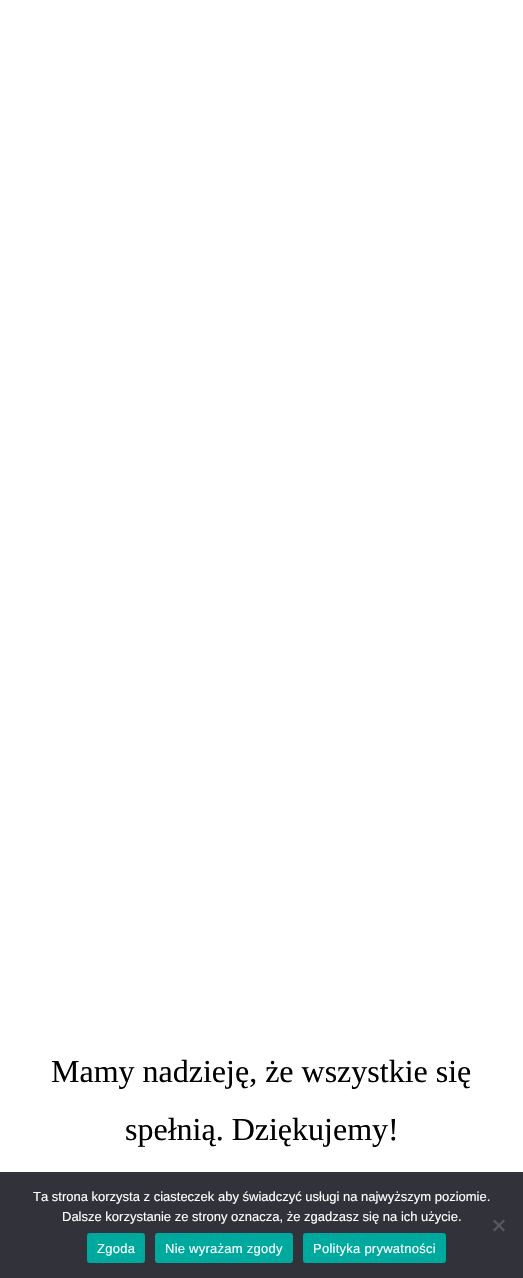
#include "include/core/SkBlurTypes.h"
#include "include/core/SkCanvas.h"
#include "include/core/SkData.h"
#include "include/core/SkFont.h"
#include "include/core/SkFontMgr.h"
#include "include/core/SkImage.h"
#include "include/core/SkMaskFilter.h"
#include "include/core/SkPaint.h"
#include "include/core/SkPathBuilder.h"
#include "include/core/SkTextBlob.h"
#include "include/effects/SkDashPathEffect.h"
#include "include/effects/SkGradientShader.h"
#include "include/utils/SkParsePath.h"

extern sk_sp<SkFontMgr> fontMgr;

void draw(SkCanvas* canvas) {
  SkPaint p;
  p.setAntiAlias(true);
  auto spacedText = [&](const char* s, float x, float y, const SkFont& font, const SkPaint& ink, float letter, float word) {
    std::vector<SkGlyphID> glyphs(font.countText(s, strlen(s), SkTextEncoding::kUTF8));
    std::vector<float> xs(glyphs.size());
    font.textToGlyphs(s, strlen(s), SkTextEncoding::kUTF8, glyphs);
    font.getXPos(glyphs, xs, x);
    float extra = 0;
    for (size_t i = 0; i < glyphs.size(); i++) {
      xs[i] += extra;
      extra += letter + word * (glyphs[i] == font.unicharToGlyph(' '));
    }
    canvas->drawTextBlob(SkTextBlob::MakeFromPosHGlyphs(glyphs, xs, y, font), 0, 0, ink);
  };
  canvas->clear(SK_ColorWHITE);
  p.setColor(SkColorSetRGB(50, 50, 58));
  canvas->drawRect(SkRect::MakeLTRB(0, 1172, 523, 1278), p);
  p.setColor(SkColorSetRGB(89, 89, 93));
  canvas->drawPath(SkPathBuilder().moveTo(503.5f, 1219.5f).lineTo(505, 1221).lineTo(494.5f, 1231.5f).lineTo(493, 1230).close().detach(), p);
  canvas->drawPath(SkPathBuilder().moveTo(493, 1221).lineTo(494.5f, 1219.5f).lineTo(505, 1230).lineTo(503.5f, 1231.5f).close().detach(), p);
  p.setColor(SkColorSetRGB(0, 169, 157));
  canvas->drawRoundRect(SkRect::MakeLTRB(87, 1233, 145, 1263), 3, 3, p);
  canvas->drawRoundRect(SkRect::MakeLTRB(155, 1233, 293, 1263), 3, 3, p);
  canvas->drawRoundRect(SkRect::MakeLTRB(303, 1233, 446, 1263), 3, 3, p);
  SkFont font1(fontMgr->matchFamilyStyle("Liberation Serif", SkFontStyle::Normal()), 32);
  font1.setSubpixel(true);
  p.setColor(SK_ColorBLACK);
  canvas->drawString("Mamy nadzieję, że wszystkie się", 51, 1082, font1, p);
  canvas->drawString("spełnią. Dziękujemy!", 125, 1140, font1, p);
  SkFont font2(fontMgr->matchFamilyStyle("Liberation Sans", SkFontStyle::Normal()), 13);
  font2.setSubpixel(true);
  p.setColor(SK_ColorWHITE);
  canvas->drawString("Ta strona korzysta z ciasteczek aby świadczyć usługi na najwyższym poziomie.", 33, 1201, font2, p);
  canvas->drawString("Dalsze korzystanie ze strony oznacza, że zgadzasz się na ich użycie.", 62, 1221, font2, p);
  spacedText("Zgoda", 97, 1253, font2, p, 0.25f, 0);
  spacedText("Nie wyrażam zgody", 165, 1253, font2, p, 0.25f, 0);
  spacedText("Polityka prywatności", 313, 1253, font2, p, 0.25f, 0);
}
